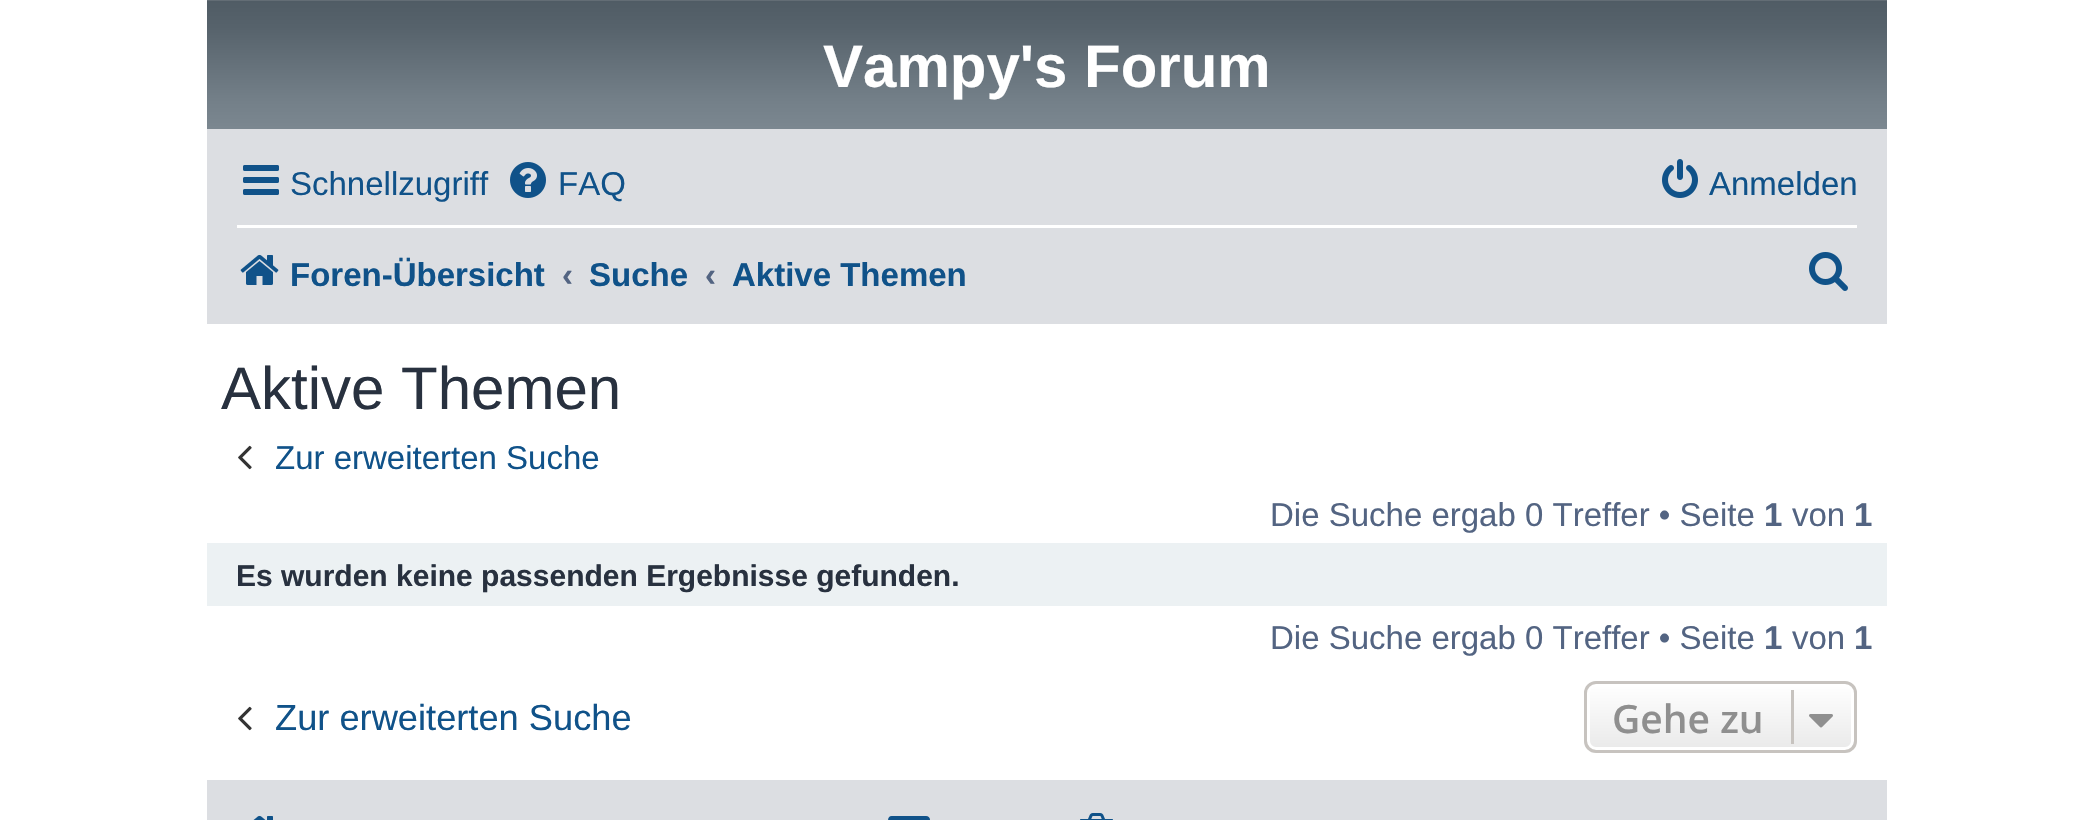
#include "include/core/SkBlurTypes.h"
#include "include/core/SkCanvas.h"
#include "include/core/SkData.h"
#include "include/core/SkFont.h"
#include "include/core/SkFontMgr.h"
#include "include/core/SkImage.h"
#include "include/core/SkMaskFilter.h"
#include "include/core/SkPaint.h"
#include "include/core/SkPathBuilder.h"
#include "include/core/SkTextBlob.h"
#include "include/effects/SkDashPathEffect.h"
#include "include/effects/SkGradientShader.h"
#include "include/utils/SkParsePath.h"

extern sk_sp<SkFontMgr> fontMgr;

void draw(SkCanvas* canvas) {
  SkPaint p;
  p.setAntiAlias(true);
  canvas->clear(SK_ColorWHITE);
  {
    const SkColor colors[] = {SkColorSetRGB(110, 119, 127), SkColorSetRGB(80, 92, 101), SkColorSetRGB(86, 98, 107), SkColorSetRGB(115, 127, 136), SkColorSetRGB(124, 136, 145)};
    const float stops[] = {0, 0.01f, 0.2f, 0.75f, 1};
    const SkPoint ends[] = {{1047, 0}, {1047, 132}};
    p.setShader(SkGradientShader::MakeLinear(ends, colors, stops, 5, SkTileMode::kClamp));
    p.setAlpha(255);
  }
  canvas->drawRect(SkRect::MakeLTRB(207, 0, 1887, 129), p);
  p.setShader(nullptr);
  p.setColor(SkColorSetRGB(220, 222, 226));
  canvas->drawRect(SkRect::MakeLTRB(207, 129, 1887, 324), p);
  canvas->drawImageRect(SkImages::DeferredFromEncodedData(SkData::MakeFromFileName("images/1.png")), SkRect::MakeLTRB(243, 165, 279, 195), SkSamplingOptions());
  canvas->drawImageRect(SkImages::DeferredFromEncodedData(SkData::MakeFromFileName("images/2.png")), SkRect::MakeLTRB(510, 162, 546, 198), SkSamplingOptions());
  canvas->drawImageRect(SkImages::DeferredFromEncodedData(SkData::MakeFromFileName("images/3.png")), SkRect::MakeLTRB(1662, 159, 1698, 198), SkSamplingOptions());
  p.setColor(SK_ColorWHITE);
  canvas->drawRect(SkRect::MakeLTRB(237, 225, 1857, 228), p);
  canvas->drawImageRect(SkImages::DeferredFromEncodedData(SkData::MakeFromFileName("images/4.png")), SkRect::MakeLTRB(240, 254, 279, 285), SkSamplingOptions());
  canvas->drawImageRect(SkImages::DeferredFromEncodedData(SkData::MakeFromFileName("images/5.png")), SkRect::MakeLTRB(1809, 252, 1848, 291), SkSamplingOptions());
  canvas->drawImageRect(SkImages::DeferredFromEncodedData(SkData::MakeFromFileName("images/6.png")), SkRect::MakeLTRB(238, 445, 252, 470), SkSamplingOptions());
  p.setColor(SkColorSetRGB(236, 241, 243));
  canvas->drawRect(SkRect::MakeLTRB(207, 543, 1887, 606), p);
  canvas->drawImageRect(SkImages::DeferredFromEncodedData(SkData::MakeFromFileName("images/6.png")), SkRect::MakeLTRB(238, 706, 252, 731), SkSamplingOptions());
  canvas->save();
  canvas->clipPath(SkPathBuilder().moveTo(1596, 681).lineTo(1845, 681).cubicTo(1851.5f, 681, 1857, 686.5f, 1857, 693).lineTo(1857, 741).cubicTo(1857, 747.5f, 1851.5f, 753, 1845, 753).lineTo(1596, 753).cubicTo(1589.5f, 753, 1584, 747.5f, 1584, 741).lineTo(1584, 693).cubicTo(1584, 686.5f, 1589.5f, 681, 1596, 681).close().detach(), true);
  {
    const SkColor colors[] = {SK_ColorWHITE, SkColorSetRGB(233, 233, 233)};
    const float stops[] = {0, 1};
    const SkPoint ends[] = {{1721, 684}, {1721, 750}};
    p.setShader(SkGradientShader::MakeLinear(ends, colors, stops, 2, SkTileMode::kClamp));
    p.setAlpha(255);
  }
  canvas->drawRect(SkRect::MakeLTRB(1584, 684, 1857, 750), p);
  canvas->restore();
  p.setStyle(SkPaint::kStroke_Style);
  p.setStrokeWidth(3);
  p.setShader(nullptr);
  p.setColor(SK_ColorWHITE);
  canvas->drawRoundRect(SkRect::MakeLTRB(1588.5f, 685.5f, 1852.5f, 748.5f), 7.5f, 7.5f, p);
  p.setColor(SkColorSetRGB(199, 195, 191));
  canvas->drawRoundRect(SkRect::MakeLTRB(1585.5f, 682.5f, 1855.5f, 751.5f), 10.5f, 10.5f, p);
  p.setStyle(SkPaint::kFill_Style);
  canvas->drawRect(SkRect::MakeLTRB(1791, 690, 1794, 744), p);
  canvas->drawImageRect(SkImages::DeferredFromEncodedData(SkData::MakeFromFileName("images/7.png")), SkRect::MakeLTRB(1809, 714, 1833, 728), SkSamplingOptions());
  p.setColor(SkColorSetRGB(220, 222, 226));
  canvas->drawRect(SkRect::MakeLTRB(207, 780, 1887, 820), p);
  canvas->drawImageRect(SkImages::DeferredFromEncodedData(SkData::MakeFromFileName("images/8.png")), SkRect::MakeLTRB(253, 815, 273, 820), SkSamplingOptions());
  canvas->drawImageRect(SkImages::DeferredFromEncodedData(SkData::MakeFromFileName("images/9.png")), SkRect::MakeLTRB(888, 816, 930, 820), SkSamplingOptions());
  canvas->drawImageRect(SkImages::DeferredFromEncodedData(SkData::MakeFromFileName("images/10.png")), SkRect::MakeLTRB(1080, 813, 1113, 820), SkSamplingOptions());
  SkFont font1(fontMgr->matchFamilyStyle("Liberation Sans", SkFontStyle::Bold()), 60);
  font1.setSubpixel(true);
  p.setColor(SK_ColorWHITE);
  canvas->drawString("Vampy's Forum", 823, 87, font1, p);
  SkFont font2(fontMgr->matchFamilyStyle("Liberation Sans", SkFontStyle::Normal()), 33);
  font2.setSubpixel(true);
  p.setColor(SkColorSetRGB(16, 82, 137));
  canvas->drawString("Schnellzugriff", 290, 195, font2, p);
  canvas->drawString("FAQ", 558, 195, font2, p);
  canvas->drawString("Anmelden", 1709, 195, font2, p);
  SkFont font3(fontMgr->matchFamilyStyle("Liberation Sans", SkFontStyle::Bold()), 33);
  font3.setSubpixel(true);
  canvas->drawString("Foren-Übersicht", 290, 286, font3, p);
  p.setColor(SkColorSetRGB(83, 100, 130));
  canvas->drawString("‹", 562, 286, font3, p);
  p.setColor(SkColorSetRGB(16, 82, 137));
  canvas->drawString("Suche", 589, 286, font3, p);
  p.setColor(SkColorSetRGB(83, 100, 130));
  canvas->drawString("‹", 705, 286, font3, p);
  p.setColor(SkColorSetRGB(16, 82, 137));
  canvas->drawString("Aktive Themen", 732, 286, font3, p);
  SkFont font4(fontMgr->matchFamilyStyle("Liberation Sans", SkFontStyle::Normal()), 60);
  font4.setSubpixel(true);
  p.setColor(SkColorSetRGB(40, 49, 63));
  canvas->drawString("Aktive Themen", 221, 409, font4, p);
  p.setColor(SkColorSetRGB(16, 82, 137));
  canvas->drawString("Zur erweiterten Suche", 275, 469, font2, p);
  p.setColor(SkColorSetRGB(83, 100, 130));
  canvas->drawString("Die Suche ergab 0 Treffer • Seite", 1270, 526, font2, p);
  canvas->drawString("1", 1764, 526, font3, p);
  canvas->drawString("von", 1792, 526, font2, p);
  canvas->drawString("1", 1854, 526, font3, p);
  SkFont font5(fontMgr->matchFamilyStyle("Liberation Sans", SkFontStyle::Bold()), 30);
  font5.setSubpixel(true);
  p.setColor(SkColorSetRGB(40, 49, 63));
  canvas->drawString("Es wurden keine passenden Ergebnisse gefunden.", 236, 586, font5, p);
  p.setColor(SkColorSetRGB(83, 100, 130));
  canvas->drawString("Die Suche ergab 0 Treffer • Seite", 1270, 649, font2, p);
  canvas->drawString("1", 1764, 649, font3, p);
  canvas->drawString("von", 1792, 649, font2, p);
  canvas->drawString("1", 1854, 649, font3, p);
  SkFont font6(fontMgr->matchFamilyStyle("Liberation Sans", SkFontStyle::Normal()), 36.25f);
  font6.setSubpixel(true);
  p.setColor(SkColorSetRGB(16, 82, 137));
  canvas->drawString("Zur erweiterten Suche", 275, 730, font6, p);
  SkFont font7(fontMgr->matchFamilyStyle("Open Sans", SkFontStyle(600, SkFontStyle::kNormal_Width, SkFontStyle::kUpright_Slant)), 39);
  font7.setSubpixel(true);
  p.setColor(SkColorSetRGB(143, 143, 143));
  canvas->drawString("Gehe zu", 1612, 733, font7, p);
}
